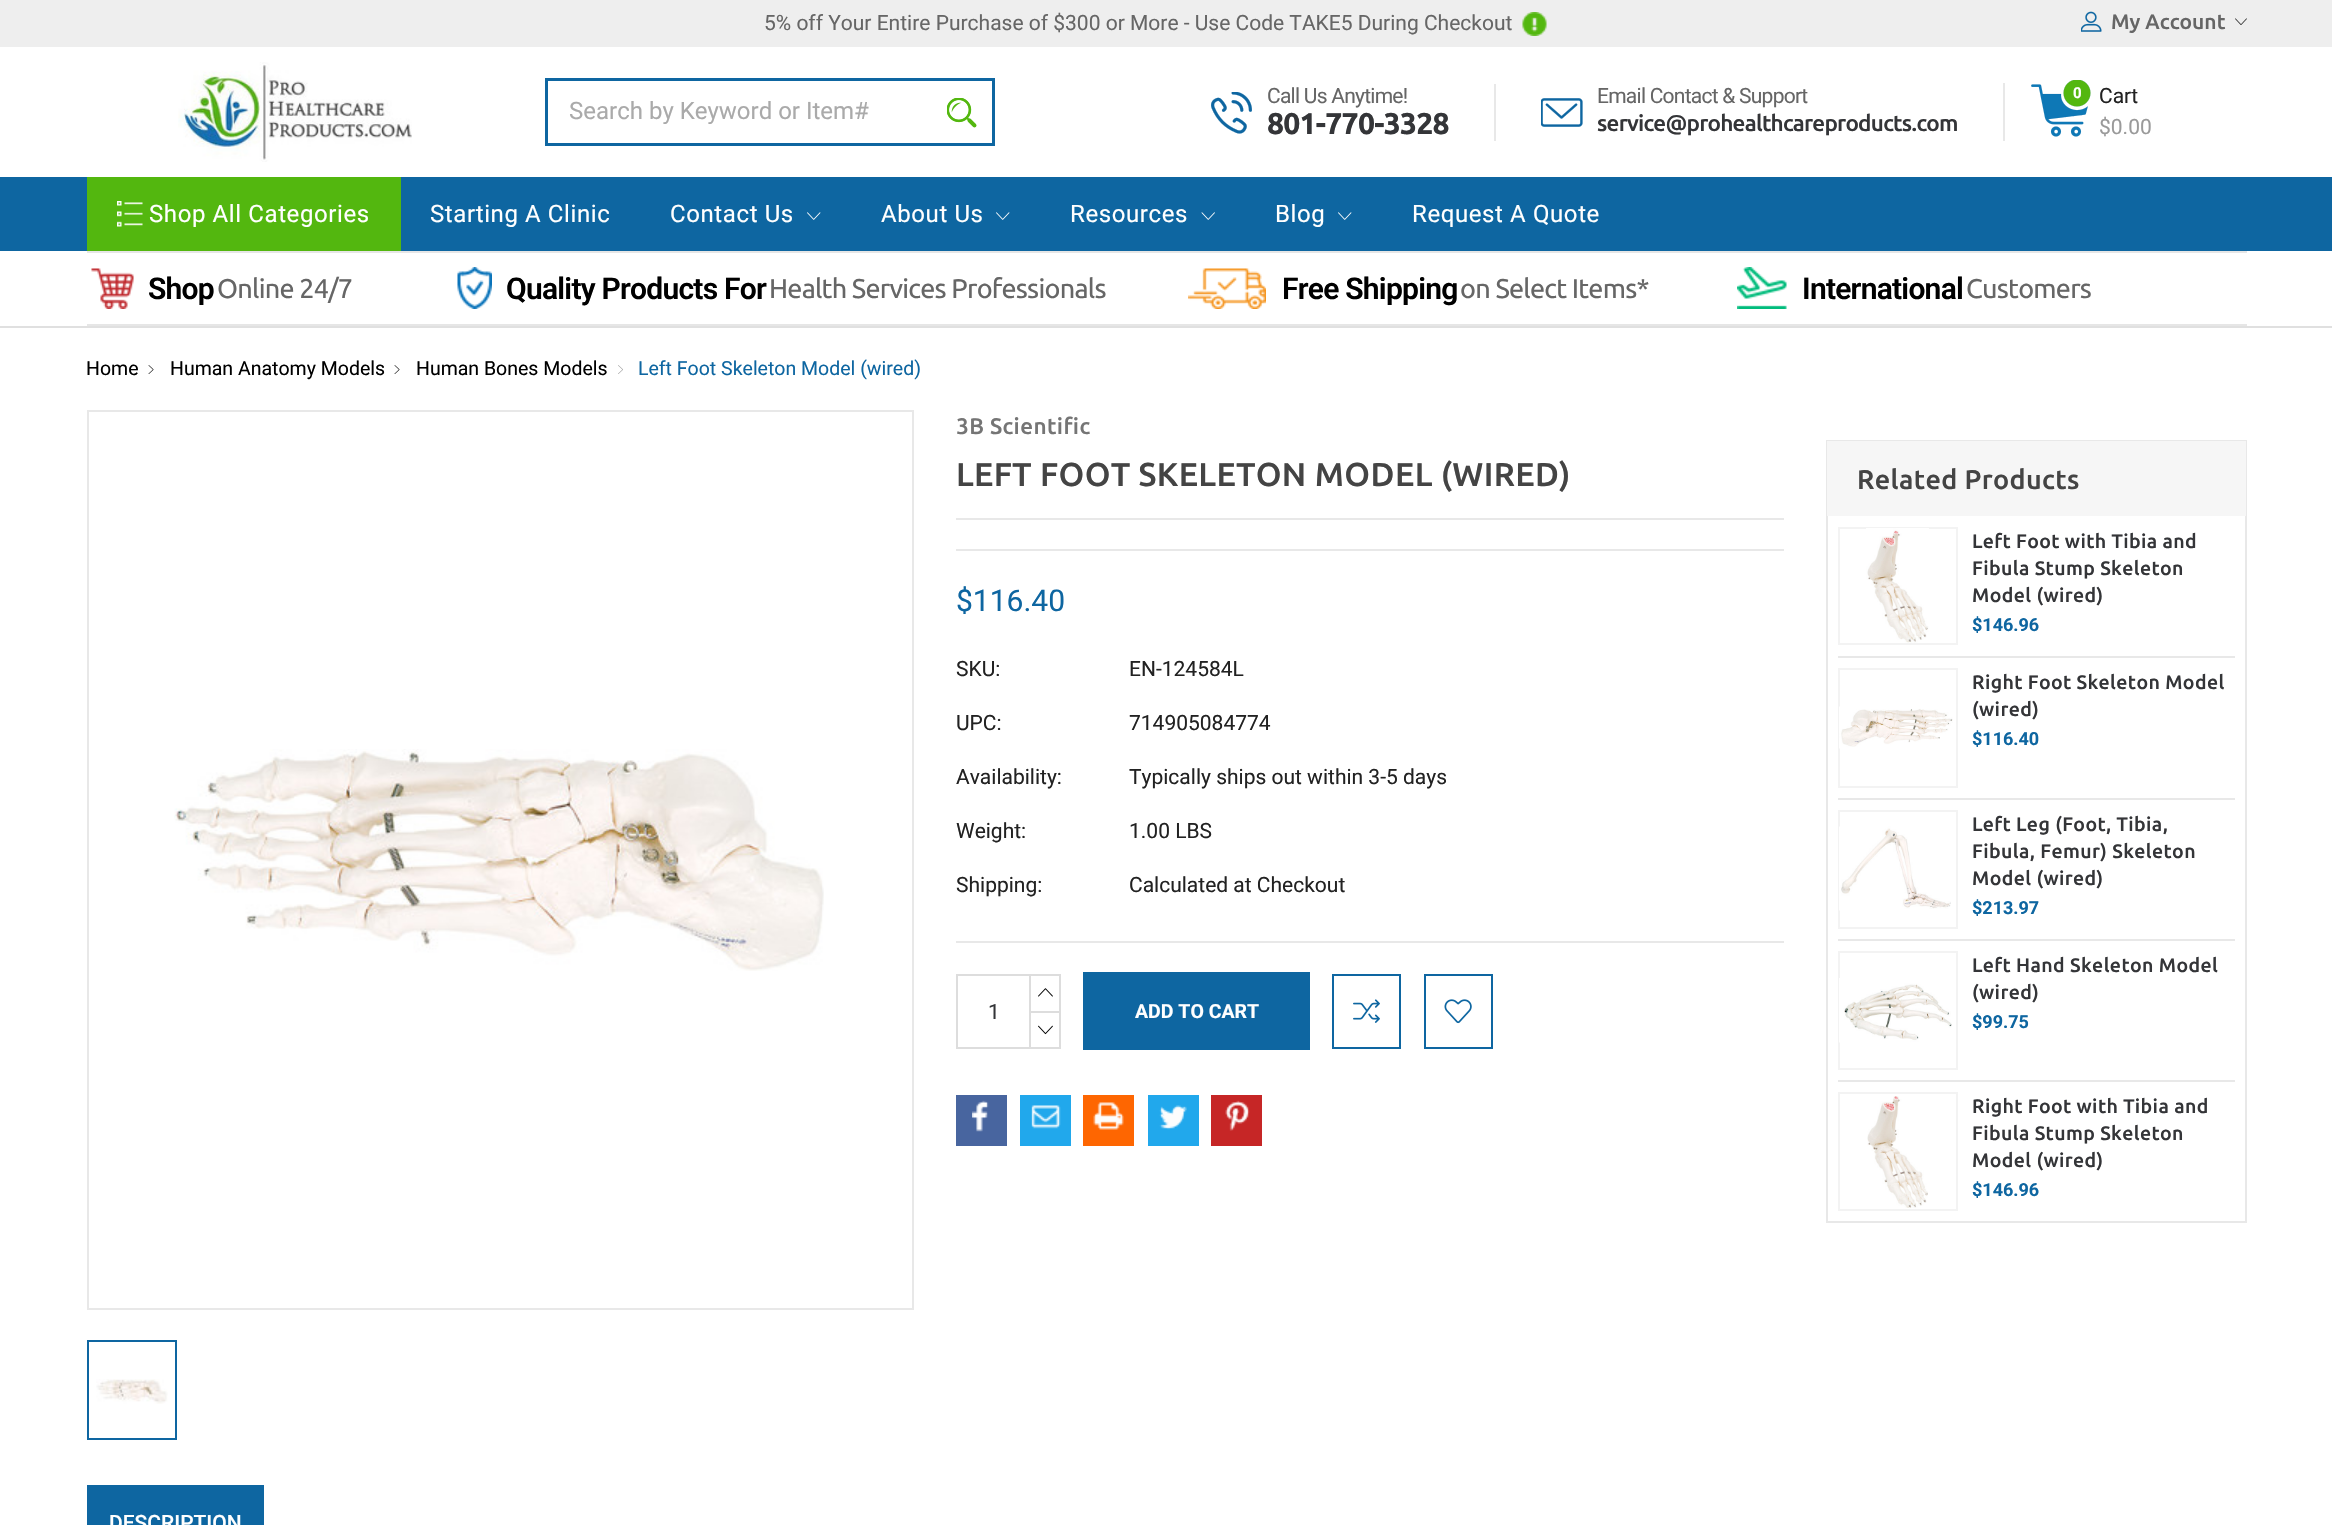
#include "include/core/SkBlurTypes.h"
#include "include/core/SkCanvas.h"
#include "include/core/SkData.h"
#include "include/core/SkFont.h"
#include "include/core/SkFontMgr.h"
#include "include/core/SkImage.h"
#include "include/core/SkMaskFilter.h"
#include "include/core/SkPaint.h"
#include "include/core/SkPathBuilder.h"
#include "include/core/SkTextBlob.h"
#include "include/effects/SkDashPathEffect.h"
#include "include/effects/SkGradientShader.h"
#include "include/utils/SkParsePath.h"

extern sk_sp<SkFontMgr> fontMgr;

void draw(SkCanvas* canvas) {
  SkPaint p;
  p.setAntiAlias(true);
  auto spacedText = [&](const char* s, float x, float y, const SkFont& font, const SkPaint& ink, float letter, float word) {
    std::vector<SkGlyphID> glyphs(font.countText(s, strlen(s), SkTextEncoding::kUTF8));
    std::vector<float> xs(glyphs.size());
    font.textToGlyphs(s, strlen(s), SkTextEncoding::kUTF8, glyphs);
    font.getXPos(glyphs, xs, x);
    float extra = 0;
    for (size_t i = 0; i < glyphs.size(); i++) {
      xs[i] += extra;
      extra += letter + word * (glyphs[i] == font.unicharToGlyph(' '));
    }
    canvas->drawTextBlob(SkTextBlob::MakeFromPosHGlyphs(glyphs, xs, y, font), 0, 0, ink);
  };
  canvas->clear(SK_ColorWHITE);
  p.setColor(SkColorSetRGB(224, 224, 224));
  canvas->drawRect(SkRect::MakeLTRB(0, 326, 2332, 328), p);
  p.setColor(SkColorSetRGB(238, 238, 238));
  canvas->drawRect(SkRect::MakeLTRB(0, 0, 2332, 47), p);
  canvas->drawImageRect(SkImages::DeferredFromEncodedData(SkData::MakeFromFileName("images/1.png")), SkRect::MakeLTRB(1522, 12, 1547, 36), SkSamplingOptions());
  canvas->drawImageRect(SkImages::DeferredFromEncodedData(SkData::MakeFromFileName("images/2.png")), SkRect::MakeLTRB(2081, 11, 2102, 32), SkSamplingOptions());
  canvas->drawImageRect(SkImages::DeferredFromEncodedData(SkData::MakeFromFileName("images/3.png")), SkRect::MakeLTRB(2235, 18, 2247, 25), SkSamplingOptions());
  canvas->drawImageRect(SkImages::DeferredFromEncodedData(SkData::MakeFromFileName("images/4.png")), SkRect::MakeLTRB(178, 62, 412, 162), SkSamplingOptions());
  p.setStyle(SkPaint::kStroke_Style);
  p.setStrokeWidth(3);
  p.setColor(SkColorSetRGB(14, 102, 161));
  canvas->drawRect(SkRect::MakeLTRB(546.5f, 79.5f, 993.5f, 144.5f), p);
  canvas->drawImageRect(SkImages::DeferredFromEncodedData(SkData::MakeFromFileName("images/5.png")), SkRect::MakeLTRB(947, 98, 977, 128), SkSamplingOptions());
  p.setStyle(SkPaint::kFill_Style);
  p.setColor(SkColorSetRGB(232, 232, 232));
  canvas->drawRect(SkRect::MakeLTRB(1494, 84, 1496, 141), p);
  canvas->drawImageRect(SkImages::DeferredFromEncodedData(SkData::MakeFromFileName("images/6.png")), SkRect::MakeLTRB(1211, 92, 1252, 134), SkSamplingOptions());
  canvas->drawRect(SkRect::MakeLTRB(2003, 83, 2005, 141), p);
  canvas->drawImageRect(SkImages::DeferredFromEncodedData(SkData::MakeFromFileName("images/7.png")), SkRect::MakeLTRB(1541, 98, 1583, 127), SkSamplingOptions());
  canvas->drawImageRect(SkImages::DeferredFromEncodedData(SkData::MakeFromFileName("images/8.png")), SkRect::MakeLTRB(2031, 80, 2091, 137), SkSamplingOptions());
  p.setColor(SkColorSetRGB(14, 102, 161));
  canvas->drawRect(SkRect::MakeLTRB(0, 177, 2332, 251), p);
  p.setColor(SkColorSetRGB(83, 183, 15));
  canvas->drawRect(SkRect::MakeLTRB(87, 177, 401, 251), p);
  canvas->drawImageRect(SkImages::DeferredFromEncodedData(SkData::MakeFromFileName("images/9.png")), SkRect::MakeLTRB(117, 201, 143, 227), SkSamplingOptions());
  canvas->drawImageRect(SkImages::DeferredFromEncodedData(SkData::MakeFromFileName("images/10.png")), SkRect::MakeLTRB(807, 212, 821, 220), SkSamplingOptions());
  canvas->drawImageRect(SkImages::DeferredFromEncodedData(SkData::MakeFromFileName("images/10.png")), SkRect::MakeLTRB(996, 212, 1010, 220), SkSamplingOptions());
  canvas->drawImageRect(SkImages::DeferredFromEncodedData(SkData::MakeFromFileName("images/11.png")), SkRect::MakeLTRB(1201, 212, 1215, 220), SkSamplingOptions());
  canvas->drawImageRect(SkImages::DeferredFromEncodedData(SkData::MakeFromFileName("images/10.png")), SkRect::MakeLTRB(1338, 212, 1352, 220), SkSamplingOptions());
  p.setColor(SkColorSetRGB(230, 230, 230));
  canvas->drawRect(SkRect::MakeLTRB(87, 251, 2247, 253), p);
  canvas->drawRect(SkRect::MakeLTRB(87, 324, 2247, 326), p);
  canvas->drawImageRect(SkImages::DeferredFromEncodedData(SkData::MakeFromFileName("images/12.png")), SkRect::MakeLTRB(91, 268, 134, 309), SkSamplingOptions());
  canvas->drawImageRect(SkImages::DeferredFromEncodedData(SkData::MakeFromFileName("images/13.png")), SkRect::MakeLTRB(457, 267, 492, 309), SkSamplingOptions());
  canvas->drawImageRect(SkImages::DeferredFromEncodedData(SkData::MakeFromFileName("images/14.png")), SkRect::MakeLTRB(1188, 268, 1266, 309), SkSamplingOptions());
  canvas->drawImageRect(SkImages::DeferredFromEncodedData(SkData::MakeFromFileName("images/15.png")), SkRect::MakeLTRB(1737, 267, 1787, 309), SkSamplingOptions());
  canvas->drawImageRect(SkImages::DeferredFromEncodedData(SkData::MakeFromFileName("images/16.png")), SkRect::MakeLTRB(148, 365, 154, 374), SkSamplingOptions());
  canvas->drawImageRect(SkImages::DeferredFromEncodedData(SkData::MakeFromFileName("images/16.png")), SkRect::MakeLTRB(394, 365, 400, 374), SkSamplingOptions());
  canvas->drawImageRect(SkImages::DeferredFromEncodedData(SkData::MakeFromFileName("images/17.png")), SkRect::MakeLTRB(618, 365, 623, 374), SkSamplingOptions());
  p.setStyle(SkPaint::kStroke_Style);
  p.setStrokeWidth(2);
  p.setColor(SkColorSetRGB(232, 232, 232));
  canvas->drawRect(SkRect::MakeLTRB(88, 411, 913, 1309), p);
  canvas->drawImageRect(SkImages::DeferredFromEncodedData(SkData::MakeFromFileName("images/18.png")), SkRect::MakeLTRB(174, 749, 824, 971), SkSamplingOptions());
  p.setColor(SkColorSetRGB(14, 102, 161));
  canvas->drawRect(SkRect::MakeLTRB(88, 1341, 176, 1439), p);
  canvas->drawImageRect(SkImages::DeferredFromEncodedData(SkData::MakeFromFileName("images/19.png")), SkRect::MakeLTRB(96, 1379, 168, 1404), SkSamplingOptions());
  p.setStyle(SkPaint::kFill_Style);
  p.setColor(SkColorSetRGB(232, 232, 232));
  canvas->drawRect(SkRect::MakeLTRB(956, 941, 1784, 943), p);
  canvas->drawRect(SkRect::MakeLTRB(956, 518, 1784, 520), p);
  canvas->drawRect(SkRect::MakeLTRB(956, 549, 1784, 551), p);
  p.setStyle(SkPaint::kStroke_Style);
  p.setColor(SkColorSetRGB(221, 221, 221));
  canvas->drawRect(SkRect::MakeLTRB(957, 975, 1030, 1048), p);
  p.setStyle(SkPaint::kFill_Style);
  canvas->drawRect(SkRect::MakeLTRB(1031, 974, 1061, 976), p);
  canvas->drawRect(SkRect::MakeLTRB(1059, 974, 1061, 1011), p);
  canvas->drawImageRect(SkImages::DeferredFromEncodedData(SkData::MakeFromFileName("images/20.png")), SkRect::MakeLTRB(1038, 988, 1053, 997), SkSamplingOptions());
  canvas->drawRect(SkRect::MakeLTRB(1031, 1011, 1061, 1013), p);
  canvas->drawRect(SkRect::MakeLTRB(1059, 1011, 1061, 1049), p);
  canvas->drawRect(SkRect::MakeLTRB(1031, 1047, 1061, 1049), p);
  canvas->drawImageRect(SkImages::DeferredFromEncodedData(SkData::MakeFromFileName("images/21.png")), SkRect::MakeLTRB(1038, 1025, 1053, 1035), SkSamplingOptions());
  p.setColor(SkColorSetRGB(14, 102, 161));
  canvas->drawRect(SkRect::MakeLTRB(1083, 972, 1310, 1050), p);
  p.setStyle(SkPaint::kStroke_Style);
  canvas->drawRect(SkRect::MakeLTRB(1333, 975, 1400, 1048), p);
  canvas->drawImageRect(SkImages::DeferredFromEncodedData(SkData::MakeFromFileName("images/22.png")), SkRect::MakeLTRB(1353, 999, 1380, 1023), SkSamplingOptions());
  canvas->drawRect(SkRect::MakeLTRB(1425, 975, 1492, 1048), p);
  canvas->drawImageRect(SkImages::DeferredFromEncodedData(SkData::MakeFromFileName("images/23.png")), SkRect::MakeLTRB(1444, 999, 1472, 1024), SkSamplingOptions());
  p.setStyle(SkPaint::kFill_Style);
  p.setColor(SkColorSetRGB(72, 101, 159));
  canvas->drawRect(SkRect::MakeLTRB(956, 1095, 1007, 1146), p);
  canvas->drawImageRect(SkImages::DeferredFromEncodedData(SkData::MakeFromFileName("images/24.png")), SkRect::MakeLTRB(972, 1100, 989, 1132), SkSamplingOptions());
  p.setColor(SkColorSetRGB(33, 168, 236));
  canvas->drawRect(SkRect::MakeLTRB(1020, 1095, 1071, 1146), p);
  canvas->drawImageRect(SkImages::DeferredFromEncodedData(SkData::MakeFromFileName("images/25.png")), SkRect::MakeLTRB(1031, 1105, 1061, 1129), SkSamplingOptions());
  p.setColor(SkColorSetRGB(254, 102, 1));
  canvas->drawRect(SkRect::MakeLTRB(1083, 1095, 1134, 1146), p);
  canvas->drawImageRect(SkImages::DeferredFromEncodedData(SkData::MakeFromFileName("images/26.png")), SkRect::MakeLTRB(1093, 1102, 1124, 1130), SkSamplingOptions());
  p.setColor(SkColorSetRGB(33, 168, 236));
  canvas->drawRect(SkRect::MakeLTRB(1148, 1095, 1199, 1146), p);
  canvas->drawImageRect(SkImages::DeferredFromEncodedData(SkData::MakeFromFileName("images/27.png")), SkRect::MakeLTRB(1159, 1105, 1187, 1130), SkSamplingOptions());
  p.setColor(SkColorSetRGB(198, 38, 38));
  canvas->drawRect(SkRect::MakeLTRB(1211, 1095, 1262, 1146), p);
  canvas->drawImageRect(SkImages::DeferredFromEncodedData(SkData::MakeFromFileName("images/28.png")), SkRect::MakeLTRB(1225, 1100, 1250, 1131), SkSamplingOptions());
  p.setColor(SkColorSetRGB(14, 102, 161));
  canvas->drawRect(SkRect::MakeLTRB(87, 1485, 264, 1525), p);
  p.setStyle(SkPaint::kStroke_Style);
  p.setColor(SkColorSetRGB(232, 232, 232));
  canvas->drawRect(SkRect::MakeLTRB(1827, 441, 2246, 1222), p);
  p.setStyle(SkPaint::kFill_Style);
  p.setColor(SkColorSetRGB(246, 246, 246));
  canvas->drawRect(SkRect::MakeLTRB(1827, 441, 2246, 516), p);
  p.setStyle(SkPaint::kStroke_Style);
  p.setColor(SkColorSetRGB(243, 243, 243));
  canvas->drawRect(SkRect::MakeLTRB(1839, 528, 1957, 644), p);
  canvas->drawImageRect(SkImages::DeferredFromEncodedData(SkData::MakeFromFileName("images/29.png")), SkRect::MakeLTRB(1866, 528, 1929, 643), SkSamplingOptions());
  p.setStyle(SkPaint::kFill_Style);
  p.setColor(SkColorSetRGB(232, 232, 232));
  canvas->drawRect(SkRect::MakeLTRB(1838, 656, 2235, 658), p);
  p.setStyle(SkPaint::kStroke_Style);
  p.setColor(SkColorSetRGB(243, 243, 243));
  canvas->drawRect(SkRect::MakeLTRB(1839, 669, 1957, 787), p);
  canvas->drawImageRect(SkImages::DeferredFromEncodedData(SkData::MakeFromFileName("images/30.png")), SkRect::MakeLTRB(1839, 706, 1953, 749), SkSamplingOptions());
  p.setStyle(SkPaint::kFill_Style);
  p.setColor(SkColorSetRGB(232, 232, 232));
  canvas->drawRect(SkRect::MakeLTRB(1838, 798, 2235, 800), p);
  p.setStyle(SkPaint::kStroke_Style);
  p.setColor(SkColorSetRGB(243, 243, 243));
  canvas->drawRect(SkRect::MakeLTRB(1839, 811, 1957, 928), p);
  canvas->drawImageRect(SkImages::DeferredFromEncodedData(SkData::MakeFromFileName("images/31.png")), SkRect::MakeLTRB(1839, 826, 1951, 911), SkSamplingOptions());
  p.setStyle(SkPaint::kFill_Style);
  p.setColor(SkColorSetRGB(232, 232, 232));
  canvas->drawRect(SkRect::MakeLTRB(1838, 939, 2235, 941), p);
  p.setStyle(SkPaint::kStroke_Style);
  p.setColor(SkColorSetRGB(243, 243, 243));
  canvas->drawRect(SkRect::MakeLTRB(1839, 952, 1957, 1069), p);
  canvas->drawImageRect(SkImages::DeferredFromEncodedData(SkData::MakeFromFileName("images/32.png")), SkRect::MakeLTRB(1839, 978, 1952, 1043), SkSamplingOptions());
  p.setStyle(SkPaint::kFill_Style);
  p.setColor(SkColorSetRGB(232, 232, 232));
  canvas->drawRect(SkRect::MakeLTRB(1838, 1080, 2235, 1082), p);
  p.setStyle(SkPaint::kStroke_Style);
  p.setColor(SkColorSetRGB(243, 243, 243));
  canvas->drawRect(SkRect::MakeLTRB(1839, 1093, 1957, 1210), p);
  canvas->drawImageRect(SkImages::DeferredFromEncodedData(SkData::MakeFromFileName("images/33.png")), SkRect::MakeLTRB(1867, 1096, 1928, 1208), SkSamplingOptions());
  SkFont font1(fontMgr->matchFamilyStyle("Roboto", SkFontStyle::Normal()), 21);
  font1.setSubpixel(true);
  p.setStyle(SkPaint::kFill_Style);
  p.setColor(SkColorSetRGB(102, 102, 102));
  canvas->drawString("5% off Your Entire Purchase of $300 or More - Use Code TAKE5 During Checkout", 764, 30, font1, p);
  SkFont font2(fontMgr->matchFamilyStyle("Ubuntu", SkFontStyle(500, SkFontStyle::kNormal_Width, SkFontStyle::kUpright_Slant)), 21);
  font2.setSubpixel(true);
  canvas->drawString("My Account", 2111, 29, font2, p);
  SkFont font3(fontMgr->matchFamilyStyle("Roboto", SkFontStyle::Normal()), 24);
  font3.setSubpixel(true);
  p.setColor(SkColorSetRGB(170, 170, 170));
  canvas->drawString("Search by Keyword or Item#", 569, 119, font3, p);
  p.setColor(SkColorSetRGB(102, 102, 102));
  spacedText("Call Us Anytime!", 1267, 103, font1, p, -0.75f, 0);
  SkFont font4(fontMgr->matchFamilyStyle("Ubuntu", SkFontStyle::Bold()), 30);
  font4.setSubpixel(true);
  p.setColor(SkColorSetRGB(52, 53, 56));
  spacedText("801-770-3328", 1267, 134, font4, p, -0.75f, 0);
  p.setColor(SkColorSetRGB(102, 102, 102));
  spacedText("Email Contact & Support", 1597, 103, font1, p, -0.75f, 0);
  SkFont font5(fontMgr->matchFamilyStyle("Ubuntu", SkFontStyle(500, SkFontStyle::kNormal_Width, SkFontStyle::kUpright_Slant)), 22.5f);
  font5.setSubpixel(true);
  p.setColor(SkColorSetRGB(52, 53, 56));
  spacedText("service@prohealthcareproducts.com", 1597, 131, font5, p, -0.75f, 0);
  SkFont font6(fontMgr->matchFamilyStyle("Roboto", SkFontStyle::Bold()), 15);
  font6.setSubpixel(true);
  p.setColor(SK_ColorWHITE);
  canvas->drawString("0", 2073, 98, font6, p);
  p.setColor(SkColorSetRGB(34, 34, 34));
  canvas->drawString("Cart", 2099, 103, font1, p);
  p.setColor(SkColorSetRGB(154, 154, 154));
  canvas->drawString("$0.00", 2099, 134, font1, p);
  p.setColor(SK_ColorWHITE);
  spacedText("Shop All Categories", 149, 222, font3, p, 0.6f, 0);
  spacedText("Starting A Clinic", 430, 222, font3, p, 0.6f, 0);
  spacedText("Contact Us", 670, 222, font3, p, 0.6f, 0);
  spacedText("About Us", 881, 222, font3, p, 0.6f, 0);
  spacedText("Resources", 1070, 222, font3, p, 0.6f, 0);
  spacedText("Blog", 1275, 222, font3, p, 0.6f, 0);
  spacedText("Request A Quote", 1412, 222, font3, p, 0.6f, 0);
  SkFont font7(fontMgr->matchFamilyStyle("Roboto", SkFontStyle(600, SkFontStyle::kNormal_Width, SkFontStyle::kUpright_Slant)), 30);
  font7.setSubpixel(true);
  p.setColor(SK_ColorBLACK);
  spacedText("Shop", 148, 299, font7, p, -0.75f, 0);
  SkFont font8(fontMgr->matchFamilyStyle("Ubuntu", SkFontStyle::Normal()), 27);
  font8.setSubpixel(true);
  p.setColor(SkColorSetRGB(102, 102, 102));
  spacedText("Online 24/7", 217, 298, font8, p, -0.75f, 0);
  p.setColor(SK_ColorBLACK);
  spacedText("Quality Products For", 506, 299, font7, p, -0.75f, 0);
  p.setColor(SkColorSetRGB(102, 102, 102));
  spacedText("Health Services Professionals", 769, 298, font8, p, -0.75f, 0);
  p.setColor(SK_ColorBLACK);
  spacedText("Free Shipping", 1282, 299, font7, p, -0.75f, 0);
  p.setColor(SkColorSetRGB(102, 102, 102));
  spacedText("on Select Items*", 1460, 298, font8, p, -0.75f, 0);
  p.setColor(SK_ColorBLACK);
  spacedText("International", 1802, 299, font7, p, -0.75f, 0);
  p.setColor(SkColorSetRGB(102, 102, 102));
  spacedText("Customers", 1966, 298, font8, p, -0.75f, 0);
  SkFont font9(fontMgr->matchFamilyStyle("Roboto", SkFontStyle::Normal()), 19.5f);
  font9.setSubpixel(true);
  p.setColor(SK_ColorBLACK);
  canvas->drawString("Home", 86, 375, font9, p);
  canvas->drawString("Human Anatomy Models", 170, 375, font9, p);
  canvas->drawString("Human Bones Models", 416, 375, font9, p);
  p.setColor(SkColorSetRGB(14, 102, 161));
  canvas->drawString("Left Foot Skeleton Model (wired)", 638, 375, font9, p);
  p.setColor(SkColorSetRGB(117, 117, 117));
  spacedText("3B Scientific", 956, 434, font5, p, 0.4f, 0);
  SkFont font10(fontMgr->matchFamilyStyle("Ubuntu", SkFontStyle(500, SkFontStyle::kNormal_Width, SkFontStyle::kUpright_Slant)), 33);
  font10.setSubpixel(true);
  p.setColor(SkColorSetRGB(68, 68, 68));
  spacedText("LEFT FOOT SKELETON MODEL (WIRED)", 956, 486, font10, p, 0.4f, 0);
  SkFont font11(fontMgr->matchFamilyStyle("Roboto", SkFontStyle::Normal()), 30);
  font11.setSubpixel(true);
  p.setColor(SkColorSetRGB(14, 102, 161));
  canvas->drawString("$116.40", 956, 611, font11, p);
  p.setColor(SkColorSetRGB(34, 34, 34));
  canvas->drawString("SKU:", 956, 676, font1, p);
  canvas->drawString("EN-124584L", 1129, 676, font1, p);
  canvas->drawString("UPC:", 956, 730, font1, p);
  canvas->drawString("714905084774", 1129, 730, font1, p);
  canvas->drawString("Availability:", 956, 784, font1, p);
  canvas->drawString("Typically ships out within 3-5 days", 1129, 784, font1, p);
  canvas->drawString("Weight:", 956, 838, font1, p);
  canvas->drawString("1.00 LBS", 1129, 838, font1, p);
  canvas->drawString("Shipping:", 956, 892, font1, p);
  canvas->drawString("Calculated at Checkout", 1129, 892, font1, p);
  p.setColor(SkColorSetRGB(52, 53, 56));
  canvas->drawString("1", 988, 1019, font1, p);
  SkFont font12(fontMgr->matchFamilyStyle("Roboto", SkFontStyle::Bold()), 19.5f);
  font12.setSubpixel(true);
  p.setColor(SK_ColorWHITE);
  canvas->drawString("ADD TO CART", 1135, 1018, font12, p);
  SkFont font13(fontMgr->matchFamilyStyle("Roboto", SkFontStyle(500, SkFontStyle::kNormal_Width, SkFontStyle::kUpright_Slant)), 21);
  font13.setSubpixel(true);
  canvas->drawString("DESCRIPTION", 109, 1530, font13, p);
  SkFont font14(fontMgr->matchFamilyStyle("Ubuntu", SkFontStyle(500, SkFontStyle::kNormal_Width, SkFontStyle::kUpright_Slant)), 27);
  font14.setSubpixel(true);
  p.setColor(SkColorSetRGB(68, 68, 68));
  spacedText("Related Products", 1857, 489, font14, p, 0.4f, 0);
  SkFont font15(fontMgr->matchFamilyStyle("Ubuntu", SkFontStyle(500, SkFontStyle::kNormal_Width, SkFontStyle::kUpright_Slant)), 19.5f);
  font15.setSubpixel(true);
  p.setColor(SkColorSetRGB(52, 53, 56));
  spacedText("Left Foot with Tibia and", 1972, 548, font15, p, 0.4f, 0);
  spacedText("Fibula Stump Skeleton", 1972, 575, font15, p, 0.4f, 0);
  spacedText("Model (wired)", 1972, 602, font15, p, 0.4f, 0);
  SkFont font16(fontMgr->matchFamilyStyle("Roboto", SkFontStyle::Bold()), 18);
  font16.setSubpixel(true);
  p.setColor(SkColorSetRGB(14, 102, 161));
  canvas->drawString("$146.96", 1972, 631, font16, p);
  p.setColor(SkColorSetRGB(52, 53, 56));
  spacedText("Right Foot Skeleton Model", 1972, 689, font15, p, 0.4f, 0);
  spacedText("(wired)", 1972, 716, font15, p, 0.4f, 0);
  p.setColor(SkColorSetRGB(14, 102, 161));
  canvas->drawString("$116.40", 1972, 745, font16, p);
  p.setColor(SkColorSetRGB(52, 53, 56));
  spacedText("Left Leg (Foot, Tibia,", 1972, 831, font15, p, 0.4f, 0);
  spacedText("Fibula, Femur) Skeleton", 1972, 858, font15, p, 0.4f, 0);
  spacedText("Model (wired)", 1972, 885, font15, p, 0.4f, 0);
  p.setColor(SkColorSetRGB(14, 102, 161));
  canvas->drawString("$213.97", 1972, 914, font16, p);
  p.setColor(SkColorSetRGB(52, 53, 56));
  spacedText("Left Hand Skeleton Model", 1972, 972, font15, p, 0.4f, 0);
  spacedText("(wired)", 1972, 999, font15, p, 0.4f, 0);
  p.setColor(SkColorSetRGB(14, 102, 161));
  canvas->drawString("$99.75", 1972, 1028, font16, p);
  p.setColor(SkColorSetRGB(52, 53, 56));
  spacedText("Right Foot with Tibia and", 1972, 1113, font15, p, 0.4f, 0);
  spacedText("Fibula Stump Skeleton", 1972, 1140, font15, p, 0.4f, 0);
  spacedText("Model (wired)", 1972, 1167, font15, p, 0.4f, 0);
  p.setColor(SkColorSetRGB(14, 102, 161));
  canvas->drawString("$146.96", 1972, 1196, font16, p);
}
